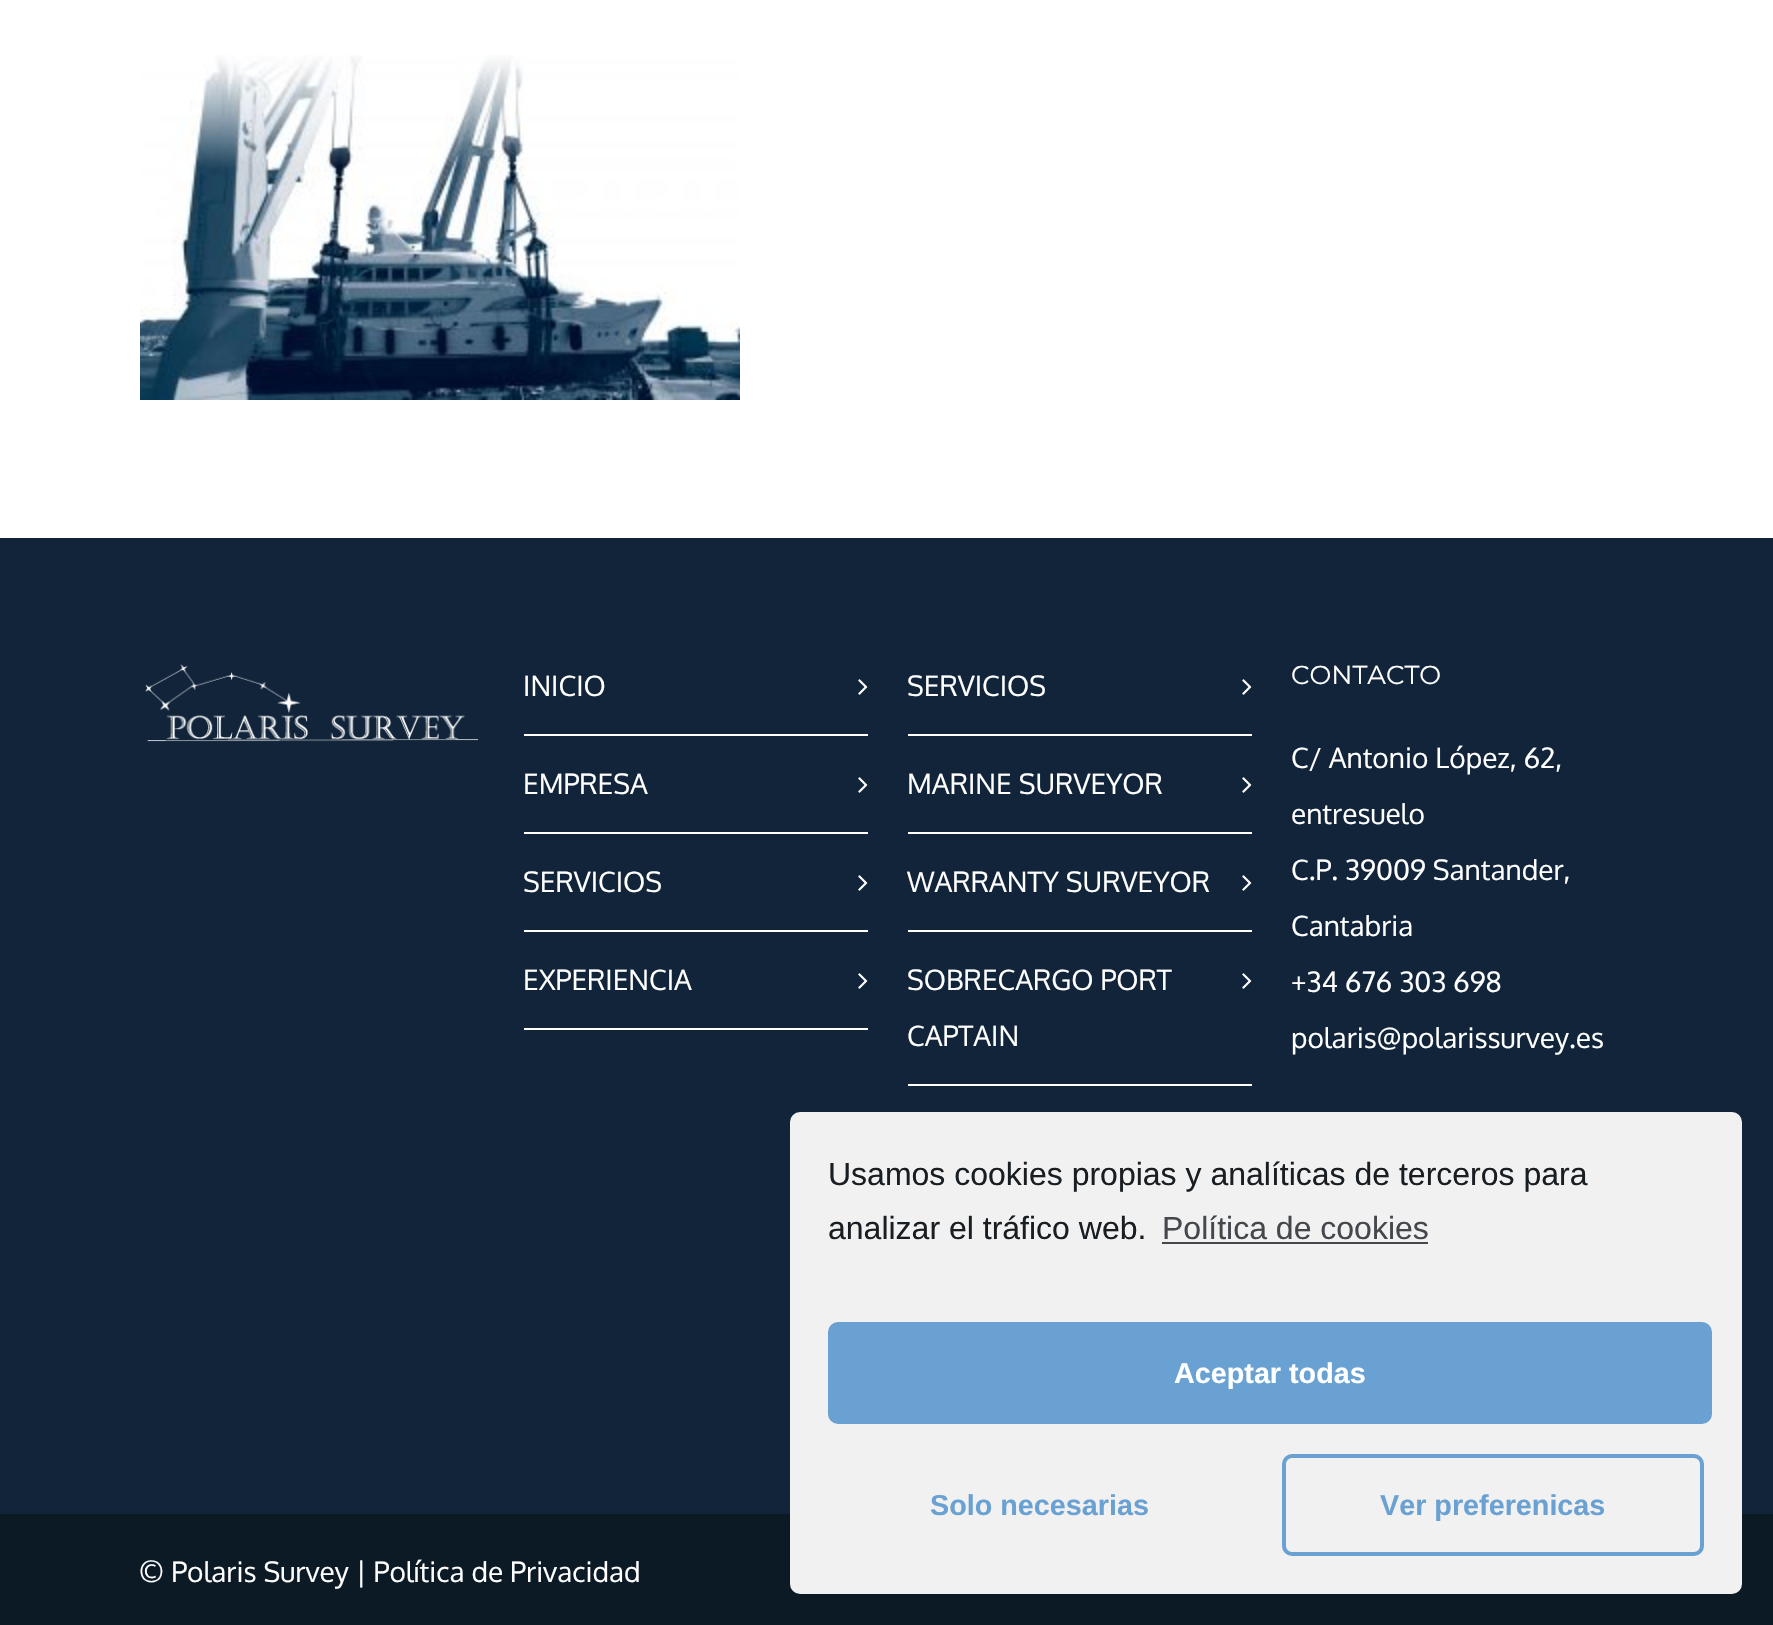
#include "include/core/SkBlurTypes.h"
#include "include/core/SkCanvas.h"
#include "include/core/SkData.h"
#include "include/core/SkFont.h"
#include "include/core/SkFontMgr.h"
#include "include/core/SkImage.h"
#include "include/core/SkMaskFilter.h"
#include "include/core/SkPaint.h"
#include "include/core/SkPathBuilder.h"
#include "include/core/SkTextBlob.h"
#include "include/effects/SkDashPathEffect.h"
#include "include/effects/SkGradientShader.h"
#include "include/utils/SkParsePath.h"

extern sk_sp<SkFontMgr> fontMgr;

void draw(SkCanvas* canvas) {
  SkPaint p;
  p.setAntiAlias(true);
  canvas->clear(SK_ColorWHITE);
  canvas->drawImageRect(SkImages::DeferredFromEncodedData(SkData::MakeFromFileName("images/1.png")), SkRect::MakeLTRB(140, 55, 740, 400), SkSamplingOptions());
  p.setColor(SkColorSetRGB(17, 36, 57));
  canvas->drawRect(SkRect::MakeLTRB(0, 538, 1773, 1514), p);
  canvas->drawImageRect(SkImages::DeferredFromEncodedData(SkData::MakeFromFileName("images/2.png")), SkRect::MakeLTRB(145, 664, 479, 742), SkSamplingOptions());
  p.setColor(SK_ColorWHITE);
  canvas->drawRect(SkRect::MakeLTRB(524, 734, 868, 736), p);
  canvas->drawImageRect(SkImages::DeferredFromEncodedData(SkData::MakeFromFileName("images/3.png")), SkRect::MakeLTRB(858, 679, 868, 695), SkSamplingOptions());
  canvas->drawRect(SkRect::MakeLTRB(524, 832, 868, 834), p);
  canvas->drawImageRect(SkImages::DeferredFromEncodedData(SkData::MakeFromFileName("images/3.png")), SkRect::MakeLTRB(858, 777, 868, 793), SkSamplingOptions());
  canvas->drawRect(SkRect::MakeLTRB(524, 930, 868, 932), p);
  canvas->drawImageRect(SkImages::DeferredFromEncodedData(SkData::MakeFromFileName("images/3.png")), SkRect::MakeLTRB(858, 875, 868, 891), SkSamplingOptions());
  canvas->drawRect(SkRect::MakeLTRB(524, 1028, 868, 1030), p);
  canvas->drawImageRect(SkImages::DeferredFromEncodedData(SkData::MakeFromFileName("images/3.png")), SkRect::MakeLTRB(858, 973, 868, 989), SkSamplingOptions());
  canvas->drawRect(SkRect::MakeLTRB(908, 734, 1252, 736), p);
  canvas->drawImageRect(SkImages::DeferredFromEncodedData(SkData::MakeFromFileName("images/3.png")), SkRect::MakeLTRB(1242, 679, 1252, 695), SkSamplingOptions());
  canvas->drawRect(SkRect::MakeLTRB(908, 832, 1252, 834), p);
  canvas->drawImageRect(SkImages::DeferredFromEncodedData(SkData::MakeFromFileName("images/3.png")), SkRect::MakeLTRB(1242, 777, 1252, 793), SkSamplingOptions());
  canvas->drawRect(SkRect::MakeLTRB(908, 930, 1252, 932), p);
  canvas->drawImageRect(SkImages::DeferredFromEncodedData(SkData::MakeFromFileName("images/3.png")), SkRect::MakeLTRB(1242, 875, 1252, 891), SkSamplingOptions());
  canvas->drawRect(SkRect::MakeLTRB(908, 1084, 1252, 1086), p);
  canvas->drawImageRect(SkImages::DeferredFromEncodedData(SkData::MakeFromFileName("images/3.png")), SkRect::MakeLTRB(1242, 973, 1252, 989), SkSamplingOptions());
  p.setColor(SkColorSetRGB(12, 26, 38));
  canvas->drawRect(SkRect::MakeLTRB(0, 1514, 1773, 1625), p);
  p.setColor(SkColorSetRGB(241, 241, 241));
  canvas->drawRoundRect(SkRect::MakeLTRB(790, 1112, 1742, 1594), 10, 10, p);
  p.setColor(SkColorSetRGB(68, 72, 76));
  canvas->drawRect(SkRect::MakeLTRB(1162, 1242, 1428, 1244), p);
  p.setColor(SkColorSetRGB(106, 161, 211));
  canvas->drawRoundRect(SkRect::MakeLTRB(830, 1324, 1710, 1422), 8, 8, p);
  p.setStyle(SkPaint::kStroke_Style);
  p.setStrokeWidth(4);
  canvas->drawRoundRect(SkRect::MakeLTRB(830, 1324, 1710, 1422), 8, 8, p);
  canvas->drawRoundRect(SkRect::MakeLTRB(1284, 1456, 1702, 1554), 8, 8, p);
  SkFont font1(fontMgr->matchFamilyStyle("Oxygen", SkFontStyle::Normal()), 28);
  font1.setSubpixel(true);
  p.setStyle(SkPaint::kFill_Style);
  p.setColor(SK_ColorWHITE);
  canvas->drawString("INICIO", 523, 696, font1, p);
  canvas->drawString("EMPRESA", 523, 794, font1, p);
  canvas->drawString("SERVICIOS", 523, 892, font1, p);
  canvas->drawString("EXPERIENCIA", 523, 990, font1, p);
  canvas->drawString("SERVICIOS", 907, 696, font1, p);
  canvas->drawString("MARINE SURVEYOR", 907, 794, font1, p);
  canvas->drawString("WARRANTY SURVEYOR", 907, 892, font1, p);
  canvas->drawString("SOBRECARGO PORT", 907, 990, font1, p);
  canvas->drawString("CAPTAIN", 907, 1046, font1, p);
  SkFont font2(fontMgr->matchFamilyStyle("Montserrat", SkFontStyle::Normal()), 26);
  font2.setSubpixel(true);
  canvas->drawString("CONTACTO", 1291, 684, font2, p);
  canvas->drawString("C/ Antonio López, 62,", 1291, 768, font1, p);
  canvas->drawString("entresuelo", 1291, 824, font1, p);
  canvas->drawString("C.P. 39009 Santander,", 1291, 880, font1, p);
  canvas->drawString("Cantabria", 1291, 936, font1, p);
  canvas->drawString("+34 676 303 698", 1291, 992, font1, p);
  canvas->drawString("polaris@polarissurvey.es", 1291, 1048, font1, p);
  canvas->drawString("© Polaris Survey | Política de Privacidad", 139, 1582, font1, p);
  SkFont font3(fontMgr->matchFamilyStyle("Liberation Sans", SkFontStyle::Normal()), 32);
  font3.setSubpixel(true);
  p.setColor(SkColorSetRGB(25, 30, 35));
  canvas->drawString("Usamos cookies propias y analíticas de terceros para", 828, 1185, font3, p);
  canvas->drawString("analizar el tráfico web.", 828, 1239, font3, p);
  p.setColor(SkColorSetRGB(68, 72, 76));
  canvas->drawString("Política de cookies", 1162, 1239, font3, p);
  SkFont font4(fontMgr->matchFamilyStyle("Liberation Sans", SkFontStyle::Bold()), 28.75f);
  font4.setSubpixel(true);
  p.setColor(SK_ColorWHITE);
  canvas->drawString("Aceptar todas", 1174, 1383, font4, p);
  p.setColor(SkColorSetRGB(106, 161, 211));
  canvas->drawString("Solo necesarias", 930, 1515, font4, p);
  canvas->drawString("Ver preferenicas", 1380, 1515, font4, p);
}
